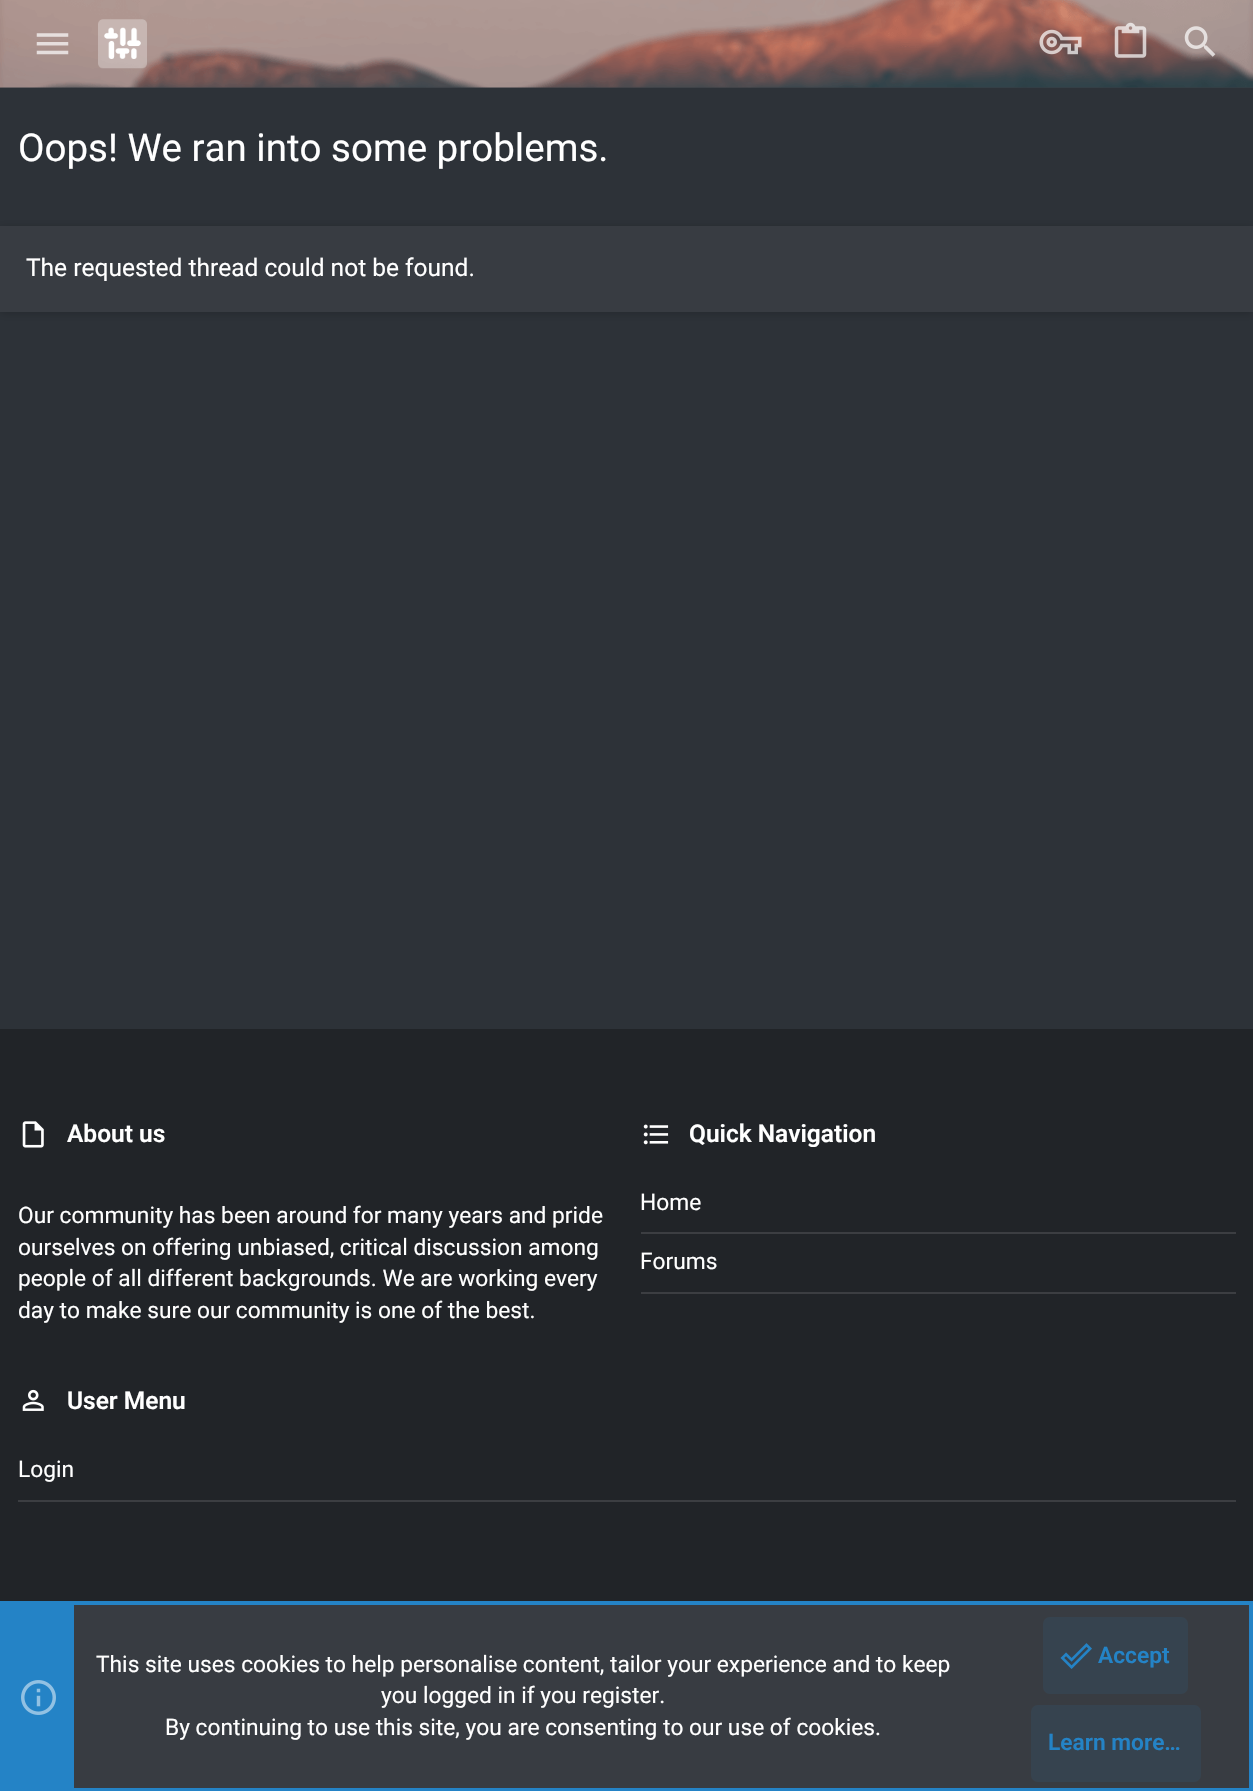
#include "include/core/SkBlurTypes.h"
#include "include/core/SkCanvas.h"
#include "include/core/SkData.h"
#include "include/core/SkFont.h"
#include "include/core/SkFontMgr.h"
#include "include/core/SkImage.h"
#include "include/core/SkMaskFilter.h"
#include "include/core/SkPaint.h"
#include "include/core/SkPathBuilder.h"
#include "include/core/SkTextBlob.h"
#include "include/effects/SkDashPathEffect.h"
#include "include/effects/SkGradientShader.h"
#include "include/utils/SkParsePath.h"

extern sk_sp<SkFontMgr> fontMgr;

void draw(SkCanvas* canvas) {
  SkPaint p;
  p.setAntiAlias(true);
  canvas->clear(SkColorSetRGB(45, 50, 56));
  p.setColor(SkColorSetRGB(56, 60, 66));
  canvas->drawRect(SkRect::MakeLTRB(0, 87, 1253, 88), p);
  canvas->drawImageRect(SkImages::DeferredFromEncodedData(SkData::MakeFromFileName("images/1.png")), SkRect::MakeLTRB(0, 0, 1253, 88), SkSamplingOptions());
  canvas->drawImageRect(SkImages::DeferredFromEncodedData(SkData::MakeFromFileName("images/2.png")), SkRect::MakeLTRB(36, 33, 69, 55), SkSamplingOptions());
  canvas->drawImageRect(SkImages::DeferredFromEncodedData(SkData::MakeFromFileName("images/3.png")), SkRect::MakeLTRB(98, 19, 147, 69), SkSamplingOptions());
  canvas->drawImageRect(SkImages::DeferredFromEncodedData(SkData::MakeFromFileName("images/4.png")), SkRect::MakeLTRB(1039, 29, 1082, 55), SkSamplingOptions());
  canvas->drawImageRect(SkImages::DeferredFromEncodedData(SkData::MakeFromFileName("images/5.png")), SkRect::MakeLTRB(1114, 22, 1147, 58), SkSamplingOptions());
  canvas->drawImageRect(SkImages::DeferredFromEncodedData(SkData::MakeFromFileName("images/6.png")), SkRect::MakeLTRB(1184, 26, 1216, 57), SkSamplingOptions());
  p.setColor(SkColorSetARGB(51, 0, 0, 0));
  p.setMaskFilter(SkMaskFilter::MakeBlur(kNormal_SkBlurStyle, 4.5f));
  canvas->drawRect(SkRect::MakeLTRB(0, 228, 1253, 313), p);
  p.setMaskFilter(nullptr);
  p.setColor(SkColorSetRGB(56, 60, 66));
  canvas->drawRect(SkRect::MakeLTRB(0, 226, 1253, 312), p);
  p.setColor(SkColorSetRGB(33, 36, 40));
  canvas->drawRect(SkRect::MakeLTRB(0, 1029, 1253, 1601), p);
  canvas->drawImageRect(SkImages::DeferredFromEncodedData(SkData::MakeFromFileName("images/7.png")), SkRect::MakeLTRB(22, 1121, 44, 1148), SkSamplingOptions());
  canvas->drawImageRect(SkImages::DeferredFromEncodedData(SkData::MakeFromFileName("images/8.png")), SkRect::MakeLTRB(643, 1124, 669, 1145), SkSamplingOptions());
  p.setColor(SkColorSetRGB(60, 62, 66));
  canvas->drawRect(SkRect::MakeLTRB(641, 1232, 1236, 1234), p);
  canvas->drawRect(SkRect::MakeLTRB(641, 1292, 1236, 1294), p);
  canvas->drawImageRect(SkImages::DeferredFromEncodedData(SkData::MakeFromFileName("images/9.png")), SkRect::MakeLTRB(22, 1389, 44, 1411), SkSamplingOptions());
  canvas->drawRect(SkRect::MakeLTRB(18, 1500, 1236, 1502), p);
  p.setColor(SkColorSetRGB(56, 60, 66));
  canvas->drawRect(SkRect::MakeLTRB(74, 1605, 1249, 1788), p);
  p.setStyle(SkPaint::kStroke_Style);
  p.setStrokeWidth(4);
  p.setColor(SkColorSetRGB(36, 131, 198));
  canvas->drawRect(SkRect::MakeLTRB(2, 1603, 1251, 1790), p);
  p.setStyle(SkPaint::kFill_Style);
  canvas->drawRect(SkRect::MakeLTRB(4, 1605, 74, 1788), p);
  canvas->drawImageRect(SkImages::DeferredFromEncodedData(SkData::MakeFromFileName("images/10.png")), SkRect::MakeLTRB(21, 1680, 56, 1715), SkSamplingOptions());
  p.setColor(SkColorSetRGB(54, 67, 79));
  canvas->drawRoundRect(SkRect::MakeLTRB(1043, 1617, 1188, 1694), 7, 7, p);
  canvas->drawImageRect(SkImages::DeferredFromEncodedData(SkData::MakeFromFileName("images/11.png")), SkRect::MakeLTRB(1060, 1643, 1092, 1669), SkSamplingOptions());
  canvas->drawRoundRect(SkRect::MakeLTRB(1031, 1705, 1201, 1782), 7, 7, p);
  SkFont font1(fontMgr->matchFamilyStyle("Roboto", SkFontStyle::Normal()), 38.5f);
  font1.setSubpixel(true);
  p.setColor(SK_ColorWHITE);
  canvas->drawString("Oops! We ran into some problems.", 18, 161, font1, p);
  SkFont font2(fontMgr->matchFamilyStyle("Roboto", SkFontStyle::Normal()), 24.5f);
  font2.setSubpixel(true);
  canvas->drawString("The requested thread could not be found.", 26, 276, font2, p);
  SkFont font3(fontMgr->matchFamilyStyle("Roboto", SkFontStyle(600, SkFontStyle::kNormal_Width, SkFontStyle::kUpright_Slant)), 24.5f);
  font3.setSubpixel(true);
  canvas->drawString("About us", 67, 1142, font3, p);
  SkFont font4(fontMgr->matchFamilyStyle("Roboto", SkFontStyle::Normal()), 22.75f);
  font4.setSubpixel(true);
  canvas->drawString("Our community has been around for many years and pride", 18, 1223, font4, p);
  canvas->drawString("ourselves on offering unbiased, critical discussion among", 18, 1255, font4, p);
  canvas->drawString("people of all different backgrounds. We are working every", 18, 1286, font4, p);
  canvas->drawString("day to make sure our community is one of the best.", 18, 1318, font4, p);
  canvas->drawString("Quick Navigation", 689, 1142, font3, p);
  canvas->drawString("Home", 640, 1210, font4, p);
  canvas->drawString("Forums", 640, 1269, font4, p);
  canvas->drawString("User Menu", 67, 1409, font3, p);
  canvas->drawString("Login", 18, 1477, font4, p);
  canvas->drawString("This site uses cookies to help personalise content, tailor your experience and to keep", 96, 1672, font4, p);
  canvas->drawString("you logged in if you register.", 381, 1703, font4, p);
  canvas->drawString("By continuing to use this site, you are consenting to our use of cookies.", 165, 1735, font4, p);
  SkFont font5(fontMgr->matchFamilyStyle("Roboto", SkFontStyle(600, SkFontStyle::kNormal_Width, SkFontStyle::kUpright_Slant)), 22.75f);
  font5.setSubpixel(true);
  p.setColor(SkColorSetRGB(36, 131, 198));
  canvas->drawString("Accept", 1098, 1663, font5, p);
  canvas->drawString("Learn more…", 1048, 1750, font5, p);
}
